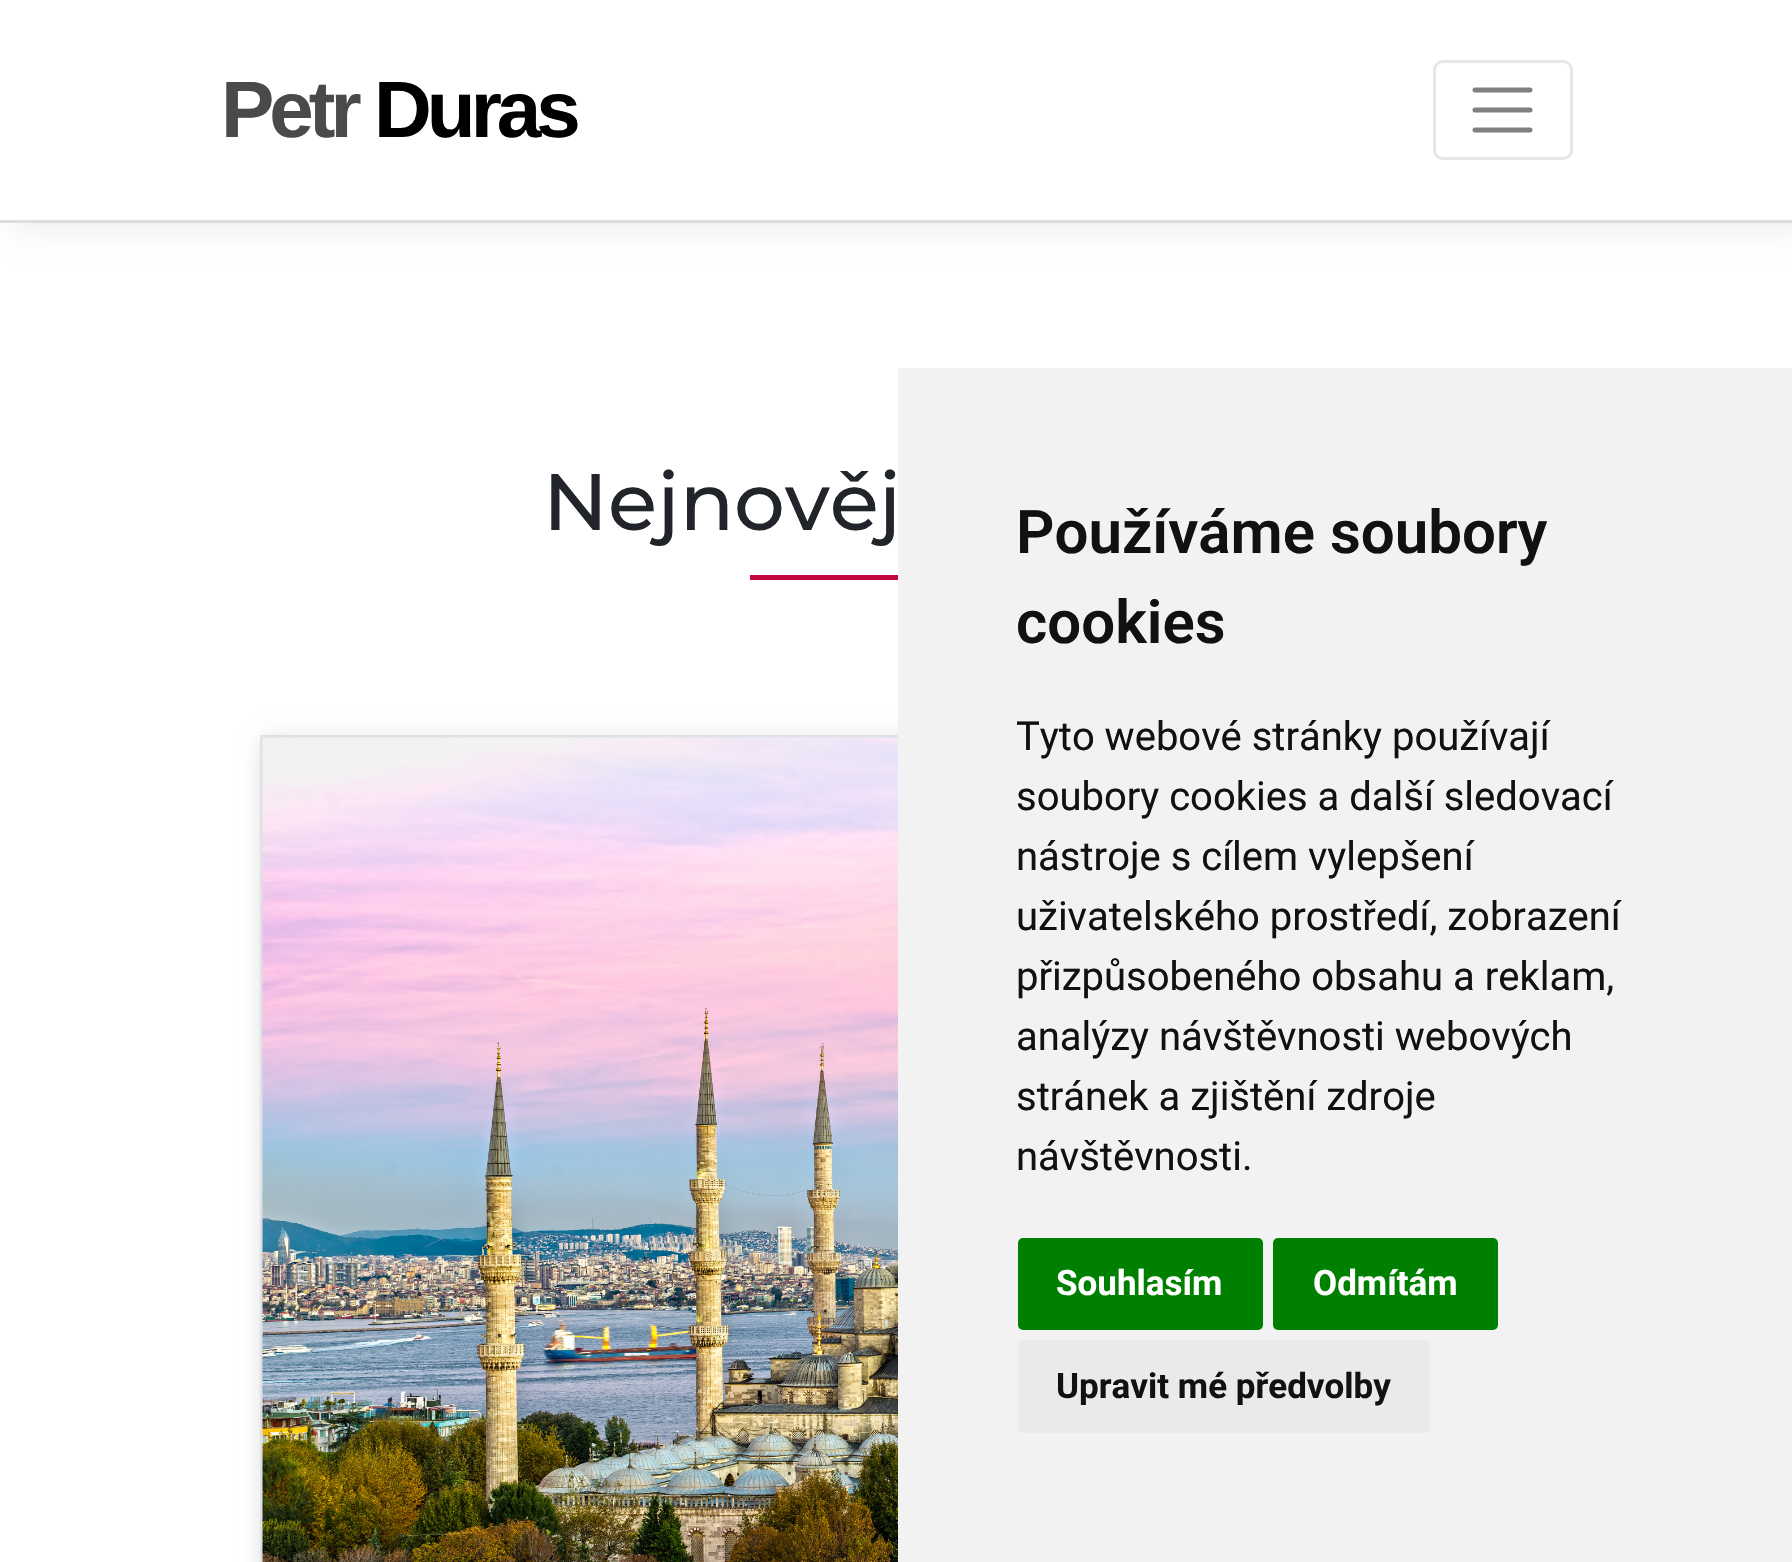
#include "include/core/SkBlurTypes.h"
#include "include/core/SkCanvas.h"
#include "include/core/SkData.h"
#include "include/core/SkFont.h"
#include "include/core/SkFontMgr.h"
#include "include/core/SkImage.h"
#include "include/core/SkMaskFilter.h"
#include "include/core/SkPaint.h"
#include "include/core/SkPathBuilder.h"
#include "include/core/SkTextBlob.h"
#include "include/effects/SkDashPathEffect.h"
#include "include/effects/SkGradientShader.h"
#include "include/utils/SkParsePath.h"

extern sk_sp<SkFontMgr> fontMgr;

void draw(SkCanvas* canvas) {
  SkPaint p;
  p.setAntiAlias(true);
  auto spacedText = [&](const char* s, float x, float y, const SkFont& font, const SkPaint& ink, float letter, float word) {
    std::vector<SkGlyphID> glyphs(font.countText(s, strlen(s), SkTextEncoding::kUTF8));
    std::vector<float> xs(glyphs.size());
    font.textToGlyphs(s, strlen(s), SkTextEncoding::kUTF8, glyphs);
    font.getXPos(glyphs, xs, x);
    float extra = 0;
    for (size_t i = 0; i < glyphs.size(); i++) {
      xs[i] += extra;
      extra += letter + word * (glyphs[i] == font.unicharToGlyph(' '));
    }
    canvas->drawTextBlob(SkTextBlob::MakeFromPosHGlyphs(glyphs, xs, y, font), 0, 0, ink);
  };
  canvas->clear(SK_ColorWHITE);
  p.setColor(SkColorSetRGB(238, 238, 238));
  p.setMaskFilter(SkMaskFilter::MakeBlur(kNormal_SkBlurStyle, 14));
  canvas->drawRect(SkRect::MakeLTRB(15, 8, 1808, 230), p);
  p.setMaskFilter(nullptr);
  p.setColor(SK_ColorWHITE);
  canvas->drawRect(SkRect::MakeLTRB(0, 0, 1792, 220), p);
  p.setColor(SkColorSetRGB(221, 221, 221));
  canvas->drawRect(SkRect::MakeLTRB(0, 220, 1792, 223), p);
  p.setStyle(SkPaint::kStroke_Style);
  p.setStrokeWidth(3);
  p.setColor(SkColorSetRGB(230, 230, 230));
  canvas->drawRoundRect(SkRect::MakeLTRB(1434.5f, 61.5f, 1571.5f, 158.5f), 8.5f, 8.5f, p);
  p.setStrokeWidth(5);
  p.setStrokeCap(SkPaint::kRound_Cap);
  p.setColor(SkColorSetRGB(128, 128, 128));
  canvas->drawPath(SkPathBuilder().moveTo(1475, 90).lineTo(1530, 90).moveTo(1475, 110).lineTo(1530, 110).moveTo(1475, 130).lineTo(1530, 130).detach(), p);
  p.setStyle(SkPaint::kFill_Style);
  p.setColor(SkColorSetRGB(196, 5, 63));
  canvas->drawRect(SkRect::MakeLTRB(750, 575, 898, 580), p);
  p.setColor(SkColorSetRGB(216, 216, 216));
  p.setMaskFilter(SkMaskFilter::MakeBlur(kNormal_SkBlurStyle, 10));
  canvas->drawRect(SkRect::MakeLTRB(263, 740, 1538, 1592), p);
  p.setMaskFilter(nullptr);
  p.setStyle(SkPaint::kStroke_Style);
  p.setStrokeWidth(3);
  p.setStrokeCap(SkPaint::kButt_Cap);
  p.setColor(SkColorSetRGB(222, 226, 230));
  canvas->drawRect(SkRect::MakeLTRB(261.5f, 736.5f, 1533.5f, 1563.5f), p);
  canvas->drawImageRect(SkImages::DeferredFromEncodedData(SkData::MakeFromFileName("images/1.png")), SkRect::MakeLTRB(262, 737, 898, 1562), SkSamplingOptions());
  p.setStyle(SkPaint::kFill_Style);
  p.setColor(SkColorSetRGB(242, 242, 242));
  canvas->drawRect(SkRect::MakeLTRB(898, 368, 1792, 1562), p);
  p.setColor(SkColorSetRGB(0, 128, 0));
  canvas->drawRoundRect(SkRect::MakeLTRB(1018, 1238, 1263, 1330), 5, 5, p);
  canvas->drawRoundRect(SkRect::MakeLTRB(1273, 1238, 1498, 1330), 5, 5, p);
  p.setColor(SkColorSetRGB(234, 234, 234));
  canvas->drawRoundRect(SkRect::MakeLTRB(1018, 1340, 1430, 1433), 5, 5, p);
  SkFont font1(fontMgr->matchFamilyStyle("Arimo", SkFontStyle::Bold()), 80);
  font1.setSubpixel(true);
  p.setColor(SkColorSetRGB(74, 74, 74));
  spacedText("Petr", 221, 137, font1, p, -5, 0);
  p.setColor(SK_ColorBLACK);
  spacedText("Duras", 374, 137, font1, p, -5, 0);
  SkFont font2(fontMgr->matchFamilyStyle("Montserrat", SkFontStyle(500, SkFontStyle::kNormal_Width, SkFontStyle::kUpright_Slant)), 80);
  font2.setSubpixel(true);
  p.setColor(SkColorSetRGB(33, 37, 41));
  canvas->drawString("Nejnověj", 543, 530, font2, p);
  SkFont font3(fontMgr->matchFamilyStyle("Roboto", SkFontStyle(600, SkFontStyle::kNormal_Width, SkFontStyle::kUpright_Slant)), 60);
  font3.setSubpixel(true);
  p.setColor(SkColorSetRGB(17, 17, 17));
  canvas->drawString("Používáme soubory", 1016, 553, font3, p);
  canvas->drawString("cookies", 1016, 643, font3, p);
  SkFont font4(fontMgr->matchFamilyStyle("Roboto", SkFontStyle::Normal()), 40);
  font4.setSubpixel(true);
  canvas->drawString("Tyto webové stránky používají", 1016, 750, font4, p);
  canvas->drawString("soubory cookies a další sledovací", 1016, 810, font4, p);
  canvas->drawString("nástroje s cílem vylepšení", 1016, 870, font4, p);
  canvas->drawString("uživatelského prostředí, zobrazení", 1016, 930, font4, p);
  canvas->drawString("přizpůsobeného obsahu a reklam,", 1016, 990, font4, p);
  canvas->drawString("analýzy návštěvnosti webových", 1016, 1050, font4, p);
  canvas->drawString("stránek a zjištění zdroje", 1016, 1110, font4, p);
  canvas->drawString("návštěvnosti.", 1016, 1170, font4, p);
  SkFont font5(fontMgr->matchFamilyStyle("Roboto", SkFontStyle::Bold()), 35);
  font5.setSubpixel(true);
  p.setColor(SK_ColorWHITE);
  canvas->drawString("Souhlasím", 1056, 1295, font5, p);
  canvas->drawString("Odmítám", 1313, 1295, font5, p);
  p.setColor(SkColorSetRGB(17, 17, 17));
  canvas->drawString("Upravit mé předvolby", 1056, 1398, font5, p);
}
